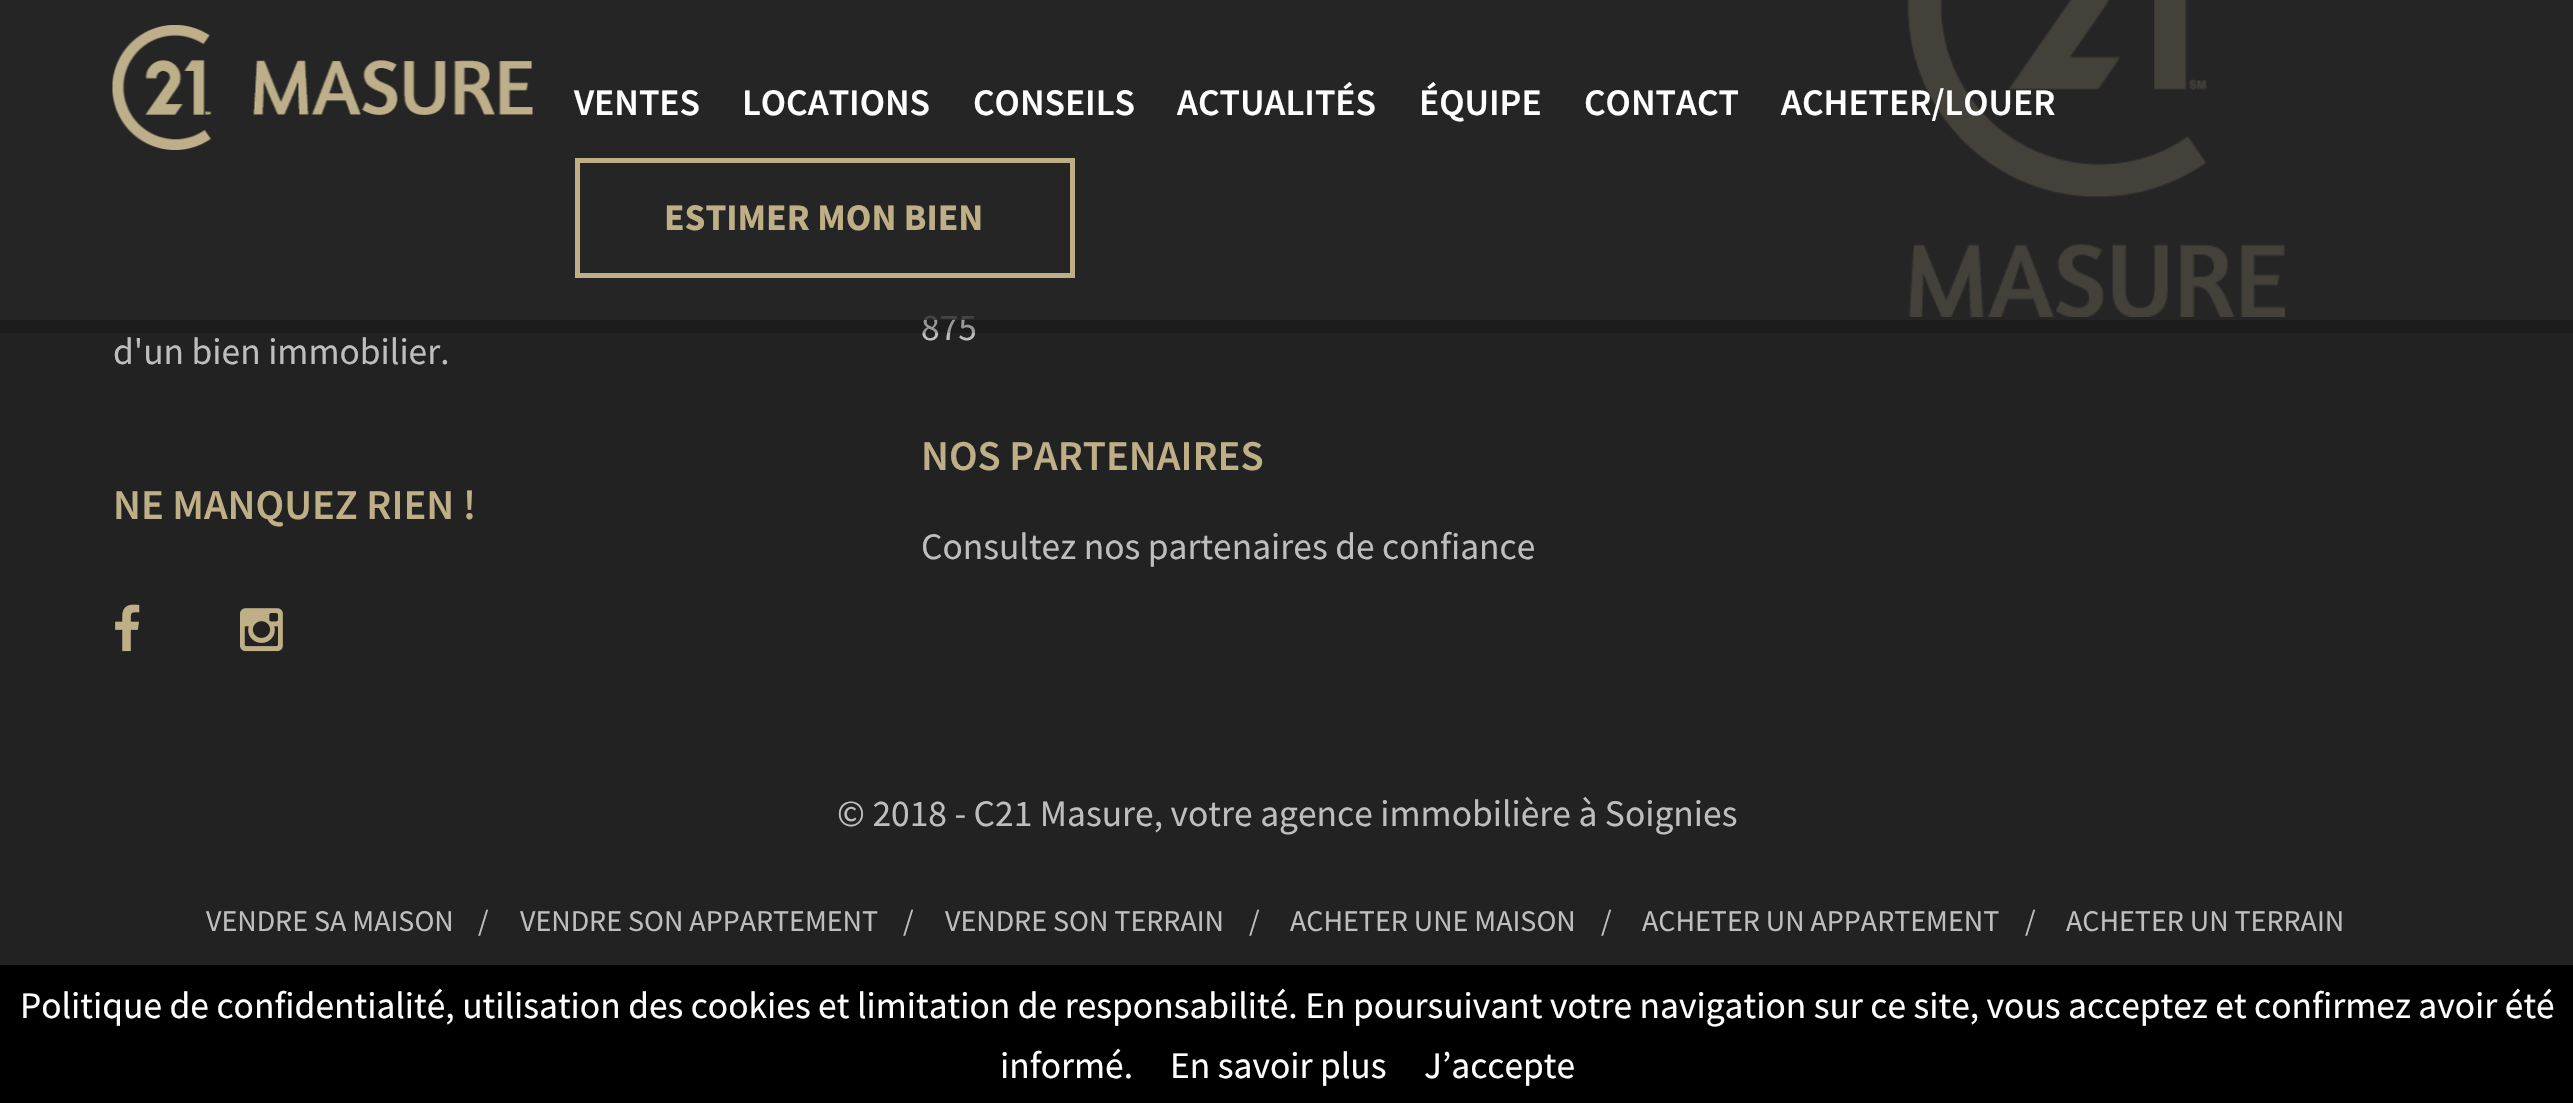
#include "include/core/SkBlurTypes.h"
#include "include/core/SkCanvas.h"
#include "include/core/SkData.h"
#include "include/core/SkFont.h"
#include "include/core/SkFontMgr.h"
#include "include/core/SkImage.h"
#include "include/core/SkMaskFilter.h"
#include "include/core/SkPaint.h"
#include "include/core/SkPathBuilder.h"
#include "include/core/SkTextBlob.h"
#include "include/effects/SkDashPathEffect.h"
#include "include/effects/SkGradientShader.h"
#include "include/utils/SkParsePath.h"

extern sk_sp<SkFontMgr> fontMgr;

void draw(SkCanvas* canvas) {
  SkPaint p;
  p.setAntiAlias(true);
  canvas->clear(SkColorSetRGB(34, 34, 34));
  canvas->drawImageRect(SkImages::DeferredFromEncodedData(SkData::MakeFromFileName("images/2.png")), SkRect::MakeLTRB(1907, 0, 2285, 317), SkSamplingOptions());
  canvas->drawImageRect(SkImages::DeferredFromEncodedData(SkData::MakeFromFileName("images/3.png")), SkRect::MakeLTRB(115, 604, 140, 652), SkSamplingOptions());
  canvas->drawImageRect(SkImages::DeferredFromEncodedData(SkData::MakeFromFileName("images/4.png")), SkRect::MakeLTRB(240, 608, 283, 652), SkSamplingOptions());
  p.setColor(SK_ColorBLACK);
  canvas->drawRect(SkRect::MakeLTRB(0, 965, 2573, 1103), p);
  SkFont font1(fontMgr->matchFamilyStyle("Source Sans Pro", SkFontStyle::Normal()), 37.5f);
  font1.setSubpixel(true);
  p.setColor(SkColorSetRGB(190, 190, 190));
  canvas->drawString("d'un bien immobilier.", 113, 364, font1, p);
  SkFont font2(fontMgr->matchFamilyStyle("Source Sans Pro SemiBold", SkFontStyle(600, SkFontStyle::kNormal_Width, SkFontStyle::kUpright_Slant)), 42.5f);
  font2.setSubpixel(true);
  p.setColor(SkColorSetRGB(190, 175, 135));
  canvas->drawString("NE MANQUEZ RIEN !", 113, 519, font2, p);
  p.setColor(SkColorSetRGB(190, 190, 190));
  canvas->drawString("875", 921, 340, font1, p);
  p.setColor(SkColorSetARGB(204, 37, 37, 38));
  canvas->drawRect(SkRect::MakeLTRB(0, 0, 2573, 320), p);
  p.setStyle(SkPaint::kStroke_Style);
  p.setStrokeWidth(5);
  p.setColor(SkColorSetRGB(190, 175, 135));
  canvas->drawRect(SkRect::MakeLTRB(577.5f, 160.5f, 1072.5f, 275.5f), p);
  SkFont font3(fontMgr->matchFamilyStyle("Source Sans Pro", SkFontStyle::Bold()), 37.5f);
  font3.setSubpixel(true);
  p.setStyle(SkPaint::kFill_Style);
  canvas->drawString("ESTIMER MON BIEN", 664, 230, font3, p);
  SkFont font4(fontMgr->matchFamilyStyle("Source Sans Pro SemiBold", SkFontStyle(600, SkFontStyle::kNormal_Width, SkFontStyle::kUpright_Slant)), 37.5f);
  font4.setSubpixel(true);
  p.setColor(SK_ColorWHITE);
  canvas->drawString("ACHETER/LOUER", 1781, 115, font4, p);
  canvas->drawString("CONTACT", 1584, 115, font4, p);
  canvas->drawString("ÉQUIPE", 1419, 115, font4, p);
  canvas->drawString("ACTUALITÉS", 1177, 115, font4, p);
  canvas->drawString("CONSEILS", 973, 115, font4, p);
  canvas->drawString("LOCATIONS", 742, 115, font4, p);
  canvas->drawString("VENTES", 574, 115, font4, p);
  canvas->drawImageRect(SkImages::DeferredFromEncodedData(SkData::MakeFromFileName("images/1.png")), SkRect::MakeLTRB(112, 25, 533, 150), SkSamplingOptions());
  p.setColor(SkColorSetARGB(51, 0, 0, 0));
  canvas->drawRect(SkRect::MakeLTRB(0, 320, 2573, 333), p);
  p.setColor(SkColorSetRGB(190, 175, 135));
  canvas->drawString("NOS PARTENAIRES", 921, 470, font2, p);
  p.setColor(SkColorSetRGB(190, 190, 190));
  canvas->drawString("Consultez nos partenaires de confiance", 921, 559, font1, p);
  canvas->drawString("© 2018 - C21 Masure, votre agence immobilière à Soignies", 837, 826, font1, p);
  SkFont font5(fontMgr->matchFamilyStyle("Source Sans Pro", SkFontStyle::Normal()), 30);
  font5.setSubpixel(true);
  canvas->drawString("VENDRE SA MAISON", 206, 931, font5, p);
  canvas->drawString("/", 478, 931, font5, p);
  canvas->drawString("VENDRE SON APPARTEMENT", 520, 931, font5, p);
  canvas->drawString("/", 903, 931, font5, p);
  canvas->drawString("VENDRE SON TERRAIN", 945, 931, font5, p);
  canvas->drawString("/", 1249, 931, font5, p);
  canvas->drawString("ACHETER UNE MAISON", 1290, 931, font5, p);
  canvas->drawString("/", 1601, 931, font5, p);
  canvas->drawString("ACHETER UN APPARTEMENT", 1642, 931, font5, p);
  canvas->drawString("/", 2025, 931, font5, p);
  canvas->drawString("ACHETER UN TERRAIN", 2066, 931, font5, p);
  p.setColor(SK_ColorWHITE);
  canvas->drawString("Politique de confidentialité, utilisation des cookies et limitation de responsabilité. En poursuivant votre navigation sur ce site, vous acceptez et confirmez avoir été", 20, 1018, font1, p);
  canvas->drawString("informé.", 1000, 1078, font1, p);
  canvas->drawString("En savoir plus", 1170, 1078, font1, p);
  canvas->drawString("J’accepte", 1424, 1078, font1, p);
}
